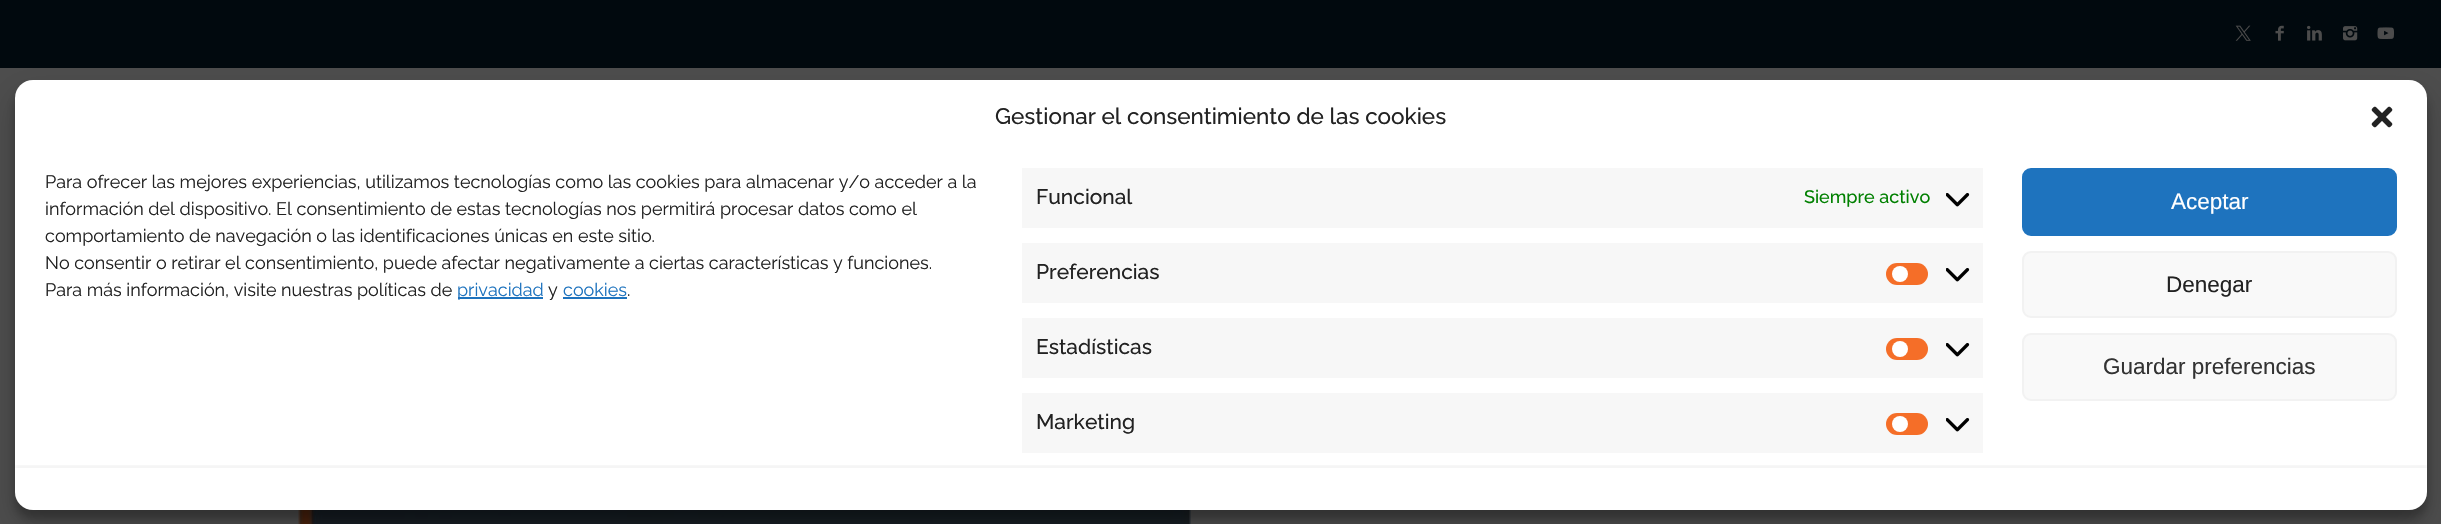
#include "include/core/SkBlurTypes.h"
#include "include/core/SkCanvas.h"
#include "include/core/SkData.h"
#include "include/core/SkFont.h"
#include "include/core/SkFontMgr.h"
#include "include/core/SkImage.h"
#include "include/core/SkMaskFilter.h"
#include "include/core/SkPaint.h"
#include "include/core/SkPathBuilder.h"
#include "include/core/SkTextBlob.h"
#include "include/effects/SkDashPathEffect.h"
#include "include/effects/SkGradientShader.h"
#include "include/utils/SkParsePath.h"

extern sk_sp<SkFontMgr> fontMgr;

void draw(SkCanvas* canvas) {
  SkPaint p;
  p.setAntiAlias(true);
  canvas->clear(SkColorSetRGB(77, 77, 77));
  p.setColor(SkColorSetRGB(1, 9, 14));
  canvas->drawRect(SkRect::MakeLTRB(0, 0, 2441, 68), p);
  canvas->drawImageRect(SkImages::DeferredFromEncodedData(SkData::MakeFromFileName("images/1.png")), SkRect::MakeLTRB(2235, 25, 2251, 41), SkSamplingOptions());
  canvas->drawImageRect(SkImages::DeferredFromEncodedData(SkData::MakeFromFileName("images/2.png")), SkRect::MakeLTRB(2275, 25, 2284, 41), SkSamplingOptions());
  canvas->drawImageRect(SkImages::DeferredFromEncodedData(SkData::MakeFromFileName("images/3.png")), SkRect::MakeLTRB(2307, 25, 2322, 41), SkSamplingOptions());
  canvas->drawImageRect(SkImages::DeferredFromEncodedData(SkData::MakeFromFileName("images/4.png")), SkRect::MakeLTRB(2343, 26, 2358, 41), SkSamplingOptions());
  canvas->drawImageRect(SkImages::DeferredFromEncodedData(SkData::MakeFromFileName("images/5.png")), SkRect::MakeLTRB(2377, 27, 2394, 39), SkSamplingOptions());
  canvas->drawImageRect(SkImages::DeferredFromEncodedData(SkData::MakeFromFileName("images/6.png")), SkRect::MakeLTRB(298, 510, 1191, 524), SkSamplingOptions());
  p.setColor(SkColorSetARGB(59, 0, 0, 0));
  p.setMaskFilter(SkMaskFilter::MakeBlur(kNormal_SkBlurStyle, 4.5f));
  canvas->drawRoundRect(SkRect::MakeLTRB(15, 89, 2427, 519), 18, 18, p);
  p.setMaskFilter(nullptr);
  p.setColor(SkColorSetARGB(48, 0, 0, 0));
  p.setMaskFilter(SkMaskFilter::MakeBlur(kNormal_SkBlurStyle, 15));
  canvas->drawRoundRect(SkRect::MakeLTRB(15, 95, 2427, 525), 18, 18, p);
  p.setMaskFilter(nullptr);
  p.setColor(SK_ColorWHITE);
  canvas->drawRoundRect(SkRect::MakeLTRB(15, 80, 2427, 510), 18, 18, p);
  canvas->drawImageRect(SkImages::DeferredFromEncodedData(SkData::MakeFromFileName("images/7.png")), SkRect::MakeLTRB(2371, 106, 2393, 128), SkSamplingOptions());
  p.setColor(SkColorSetRGB(30, 115, 190));
  canvas->drawRect(SkRect::MakeLTRB(458, 297, 543, 299), p);
  canvas->drawRect(SkRect::MakeLTRB(563, 297, 627, 299), p);
  p.setColor(SkColorSetRGB(247, 247, 247));
  canvas->drawRect(SkRect::MakeLTRB(1022, 168, 1983, 228), p);
  canvas->drawImageRect(SkImages::DeferredFromEncodedData(SkData::MakeFromFileName("images/8.png")), SkRect::MakeLTRB(1946, 193, 1970, 207), SkSamplingOptions());
  canvas->drawRect(SkRect::MakeLTRB(1022, 243, 1983, 303), p);
  p.setColor(SkColorSetRGB(245, 110, 40));
  canvas->drawRoundRect(SkRect::MakeLTRB(1886, 263, 1928, 285), 11, 11, p);
  p.setColor(SK_ColorWHITE);
  canvas->drawCircle(1900, 274, 8, p);
  canvas->drawImageRect(SkImages::DeferredFromEncodedData(SkData::MakeFromFileName("images/8.png")), SkRect::MakeLTRB(1946, 268, 1970, 282), SkSamplingOptions());
  p.setColor(SkColorSetRGB(247, 247, 247));
  canvas->drawRect(SkRect::MakeLTRB(1022, 318, 1983, 378), p);
  p.setColor(SkColorSetRGB(245, 110, 40));
  canvas->drawRoundRect(SkRect::MakeLTRB(1886, 338, 1928, 360), 11, 11, p);
  p.setColor(SK_ColorWHITE);
  canvas->drawCircle(1900, 349, 8, p);
  canvas->drawImageRect(SkImages::DeferredFromEncodedData(SkData::MakeFromFileName("images/8.png")), SkRect::MakeLTRB(1946, 343, 1970, 357), SkSamplingOptions());
  p.setColor(SkColorSetRGB(247, 247, 247));
  canvas->drawRect(SkRect::MakeLTRB(1022, 393, 1983, 453), p);
  p.setColor(SkColorSetRGB(245, 110, 40));
  canvas->drawRoundRect(SkRect::MakeLTRB(1886, 413, 1928, 435), 11, 11, p);
  p.setColor(SK_ColorWHITE);
  canvas->drawCircle(1900, 424, 8, p);
  canvas->drawImageRect(SkImages::DeferredFromEncodedData(SkData::MakeFromFileName("images/8.png")), SkRect::MakeLTRB(1946, 418, 1970, 432), SkSamplingOptions());
  p.setColor(SkColorSetRGB(30, 115, 190));
  canvas->drawRoundRect(SkRect::MakeLTRB(2023, 169, 2396, 235), 8, 8, p);
  p.setStyle(SkPaint::kStroke_Style);
  p.setStrokeWidth(2);
  canvas->drawRoundRect(SkRect::MakeLTRB(2023, 169, 2396, 235), 8, 8, p);
  p.setStyle(SkPaint::kFill_Style);
  p.setColor(SkColorSetRGB(249, 249, 249));
  canvas->drawRoundRect(SkRect::MakeLTRB(2023, 252, 2396, 317), 8, 8, p);
  p.setStyle(SkPaint::kStroke_Style);
  p.setColor(SkColorSetRGB(242, 242, 242));
  canvas->drawRoundRect(SkRect::MakeLTRB(2023, 252, 2396, 317), 8, 8, p);
  p.setStyle(SkPaint::kFill_Style);
  p.setColor(SkColorSetRGB(249, 249, 249));
  canvas->drawRoundRect(SkRect::MakeLTRB(2023, 334, 2396, 400), 8, 8, p);
  p.setStyle(SkPaint::kStroke_Style);
  p.setColor(SkColorSetRGB(242, 242, 242));
  canvas->drawRoundRect(SkRect::MakeLTRB(2023, 334, 2396, 400), 8, 8, p);
  canvas->save();
  canvas->clipRect(SkRect::MakeLTRB(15, 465, 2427, 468));
  p.setStyle(SkPaint::kFill_Style);
  p.setColor(SkColorSetARGB(13, 0, 0, 0));
  p.setMaskFilter(SkMaskFilter::MakeBlur(kNormal_SkBlurStyle, 2));
  canvas->drawRect(SkRect::MakeLTRB(15, 465, 2427, 470), p);
  p.setMaskFilter(nullptr);
  canvas->restore();
  SkFont font1(fontMgr->matchFamilyStyle("Raleway", SkFontStyle(500, SkFontStyle::kNormal_Width, SkFontStyle::kUpright_Slant)), 22.5f);
  font1.setSubpixel(true);
  p.setColor(SkColorSetRGB(34, 34, 34));
  canvas->drawString("Gestionar el consentimiento de las cookies", 995, 124, font1, p);
  SkFont font2(fontMgr->matchFamilyStyle("Raleway", SkFontStyle::Normal()), 18);
  font2.setSubpixel(true);
  canvas->drawString("Para ofrecer las mejores experiencias, utilizamos tecnologías como las cookies para almacenar y/o acceder a la", 45, 188, font2, p);
  canvas->drawString("información del dispositivo. El consentimiento de estas tecnologías nos permitirá procesar datos como el", 45, 215, font2, p);
  canvas->drawString("comportamiento de navegación o las identificaciones únicas en este sitio.", 45, 242, font2, p);
  canvas->drawString("No consentir o retirar el consentimiento, puede afectar negativamente a ciertas características y funciones.", 45, 269, font2, p);
  canvas->drawString("Para más información, visite nuestras políticas de", 45, 296, font2, p);
  p.setColor(SkColorSetRGB(30, 115, 190));
  canvas->drawString("privacidad", 457, 296, font2, p);
  p.setColor(SkColorSetRGB(34, 34, 34));
  canvas->drawString("y", 548, 296, font2, p);
  p.setColor(SkColorSetRGB(30, 115, 190));
  canvas->drawString("cookies", 563, 296, font2, p);
  p.setColor(SkColorSetRGB(34, 34, 34));
  canvas->drawString(".", 627, 296, font2, p);
  SkFont font3(fontMgr->matchFamilyStyle("Raleway", SkFontStyle(500, SkFontStyle::kNormal_Width, SkFontStyle::kUpright_Slant)), 21);
  font3.setSubpixel(true);
  canvas->drawString("Funcional", 1036, 204, font3, p);
  SkFont font4(fontMgr->matchFamilyStyle("Raleway", SkFontStyle(500, SkFontStyle::kNormal_Width, SkFontStyle::kUpright_Slant)), 18);
  font4.setSubpixel(true);
  p.setColor(SkColorSetRGB(0, 128, 0));
  canvas->drawString("Siempre activo", 1804, 203, font4, p);
  p.setColor(SkColorSetRGB(34, 34, 34));
  canvas->drawString("Preferencias", 1036, 279, font3, p);
  canvas->drawString("Estadísticas", 1036, 354, font3, p);
  canvas->drawString("Marketing", 1036, 429, font3, p);
  SkFont font5(fontMgr->matchFamilyStyle("Liberation Sans", SkFontStyle::Normal()), 22.5f);
  font5.setSubpixel(true);
  p.setColor(SK_ColorWHITE);
  canvas->drawString("Aceptar", 2171, 209, font5, p);
  p.setColor(SkColorSetRGB(34, 34, 34));
  canvas->drawString("Denegar", 2166, 292, font5, p);
  p.setColor(SkColorSetRGB(51, 51, 51));
  canvas->drawString("Guardar preferencias", 2103, 374, font5, p);
}
